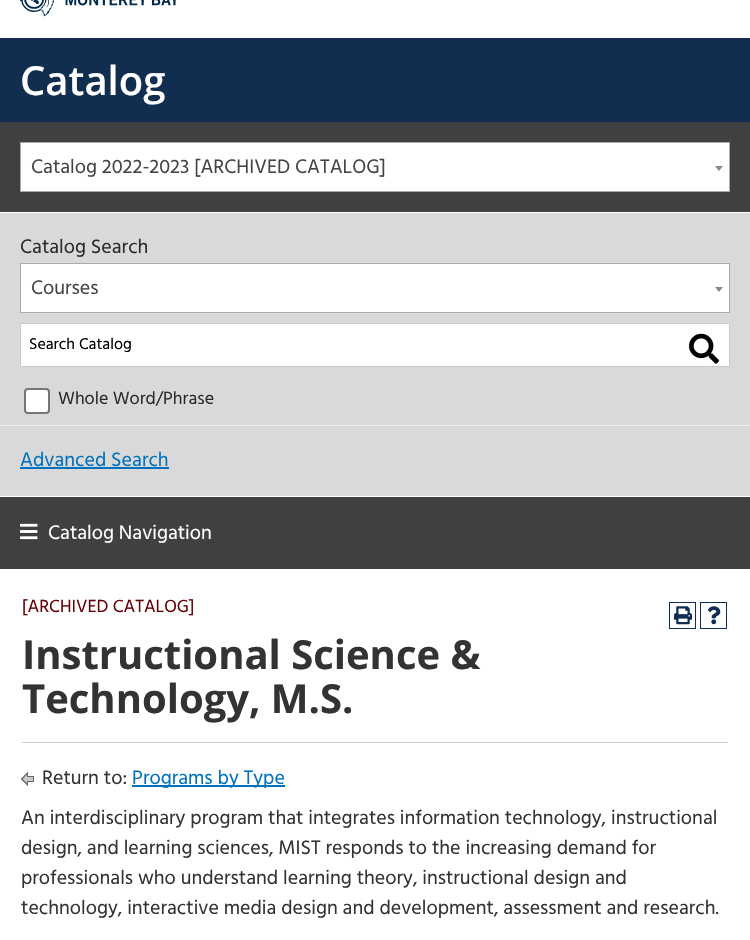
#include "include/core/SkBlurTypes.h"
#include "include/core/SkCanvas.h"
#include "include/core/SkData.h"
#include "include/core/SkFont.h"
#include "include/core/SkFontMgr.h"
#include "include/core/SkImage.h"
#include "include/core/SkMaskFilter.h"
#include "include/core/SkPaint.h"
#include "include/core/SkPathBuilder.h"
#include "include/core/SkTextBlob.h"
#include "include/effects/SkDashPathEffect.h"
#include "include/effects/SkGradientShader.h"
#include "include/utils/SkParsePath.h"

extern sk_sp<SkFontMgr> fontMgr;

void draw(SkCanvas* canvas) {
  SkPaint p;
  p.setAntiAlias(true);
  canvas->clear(SK_ColorWHITE);
  canvas->drawImageRect(SkImages::DeferredFromEncodedData(SkData::MakeFromFileName("images/1.png")), SkRect::MakeLTRB(20, 0, 176, 17), SkSamplingOptions());
  p.setColor(SkColorSetRGB(17, 46, 81));
  canvas->drawRect(SkRect::MakeLTRB(0, 38, 750, 122), p);
  p.setColor(SkColorSetRGB(64, 64, 64));
  canvas->drawRect(SkRect::MakeLTRB(0, 122, 750, 212), p);
  p.setColor(SK_ColorWHITE);
  canvas->drawRect(SkRect::MakeLTRB(20.5f, 142.5f, 729.5f, 191.5f), p);
  p.setStyle(SkPaint::kStroke_Style);
  p.setStrokeWidth(1);
  p.setColor(SkColorSetRGB(170, 170, 170));
  canvas->drawRect(SkRect::MakeLTRB(20.5f, 142.5f, 729.5f, 191.5f), p);
  p.setStyle(SkPaint::kFill_Style);
  p.setColor(SkColorSetRGB(136, 136, 136));
  canvas->drawPath(SkPathBuilder().moveTo(715, 166).lineTo(723, 166).lineTo(719, 171).close().detach(), p);
  p.setColor(SkColorSetRGB(217, 217, 217));
  canvas->drawRect(SkRect::MakeLTRB(0, 213, 750, 496), p);
  p.setColor(SK_ColorWHITE);
  canvas->drawRect(SkRect::MakeLTRB(20.5f, 263.5f, 729.5f, 312.5f), p);
  p.setStyle(SkPaint::kStroke_Style);
  p.setColor(SkColorSetRGB(170, 170, 170));
  canvas->drawRect(SkRect::MakeLTRB(20.5f, 263.5f, 729.5f, 312.5f), p);
  p.setStyle(SkPaint::kFill_Style);
  p.setColor(SkColorSetRGB(136, 136, 136));
  canvas->drawPath(SkPathBuilder().moveTo(715, 287).lineTo(723, 287).lineTo(719, 292).close().detach(), p);
  p.setColor(SK_ColorWHITE);
  canvas->drawRect(SkRect::MakeLTRB(20.5f, 323.5f, 729.5f, 366.5f), p);
  p.setStyle(SkPaint::kStroke_Style);
  p.setColor(SkColorSetRGB(202, 202, 202));
  canvas->drawRect(SkRect::MakeLTRB(20.5f, 323.5f, 729.5f, 366.5f), p);
  canvas->drawImageRect(SkImages::DeferredFromEncodedData(SkData::MakeFromFileName("images/2.png")), SkRect::MakeLTRB(689, 333, 719, 364), SkSamplingOptions());
  p.setStyle(SkPaint::kFill_Style);
  p.setColor(SK_ColorWHITE);
  canvas->drawRoundRect(SkRect::MakeLTRB(25, 389, 49, 413), 3, 3, p);
  p.setStyle(SkPaint::kStroke_Style);
  p.setStrokeWidth(2);
  p.setColor(SkColorSetRGB(118, 118, 118));
  canvas->drawRoundRect(SkRect::MakeLTRB(25, 389, 49, 413), 3, 3, p);
  p.setStyle(SkPaint::kFill_Style);
  p.setColor(SkColorSetRGB(236, 236, 236));
  canvas->drawRect(SkRect::MakeLTRB(0, 425, 750, 426), p);
  p.setColor(SkColorSetRGB(0, 113, 188));
  canvas->drawRect(SkRect::MakeLTRB(20, 467, 169, 469), p);
  p.setColor(SkColorSetRGB(64, 64, 64));
  canvas->drawRect(SkRect::MakeLTRB(0, 497, 750, 569), p);
  canvas->drawImageRect(SkImages::DeferredFromEncodedData(SkData::MakeFromFileName("images/3.png")), SkRect::MakeLTRB(20, 523, 38, 540), SkSamplingOptions());
  p.setStyle(SkPaint::kStroke_Style);
  p.setStrokeWidth(1);
  p.setColor(SkColorSetRGB(16, 46, 81));
  canvas->drawRect(SkRect::MakeLTRB(669.5f, 602.5f, 695.5f, 628.5f), p);
  canvas->drawImageRect(SkImages::DeferredFromEncodedData(SkData::MakeFromFileName("images/4.png")), SkRect::MakeLTRB(674, 606, 692, 625), SkSamplingOptions());
  canvas->drawRect(SkRect::MakeLTRB(700.5f, 602.5f, 726.5f, 628.5f), p);
  canvas->drawImageRect(SkImages::DeferredFromEncodedData(SkData::MakeFromFileName("images/5.png")), SkRect::MakeLTRB(708, 606, 721, 625), SkSamplingOptions());
  p.setStyle(SkPaint::kFill_Style);
  p.setColor(SkColorSetRGB(204, 204, 204));
  canvas->drawRect(SkRect::MakeLTRB(22, 742, 728, 743), p);
  canvas->drawImageRect(SkImages::DeferredFromEncodedData(SkData::MakeFromFileName("images/6.png")), SkRect::MakeLTRB(21, 772, 34, 786), SkSamplingOptions());
  p.setColor(SkColorSetRGB(0, 113, 188));
  canvas->drawRect(SkRect::MakeLTRB(132, 785, 285, 787), p);
  SkFont font1(fontMgr->matchFamilyStyle("Open Sans", SkFontStyle(600, SkFontStyle::kNormal_Width, SkFontStyle::kUpright_Slant)), 40);
  font1.setSubpixel(true);
  p.setColor(SK_ColorWHITE);
  canvas->drawString("Catalog", 20, 95, font1, p);
  SkFont font2(fontMgr->matchFamilyStyle("Hind", SkFontStyle::Normal()), 20);
  font2.setSubpixel(true);
  p.setColor(SkColorSetRGB(68, 68, 68));
  canvas->drawString("Catalog 2022-2023 [ARCHIVED CATALOG]", 31, 173, font2, p);
  p.setColor(SkColorSetRGB(43, 43, 43));
  canvas->drawString("Catalog Search", 20, 253, font2, p);
  p.setColor(SkColorSetRGB(68, 68, 68));
  canvas->drawString("Courses", 31, 294, font2, p);
  SkFont font3(fontMgr->matchFamilyStyle("Hind", SkFontStyle::Normal()), 16);
  font3.setSubpixel(true);
  p.setColor(SK_ColorBLACK);
  canvas->drawString("Search Catalog", 29, 349, font3, p);
  SkFont font4(fontMgr->matchFamilyStyle("Hind", SkFontStyle::Normal()), 18);
  font4.setSubpixel(true);
  p.setColor(SkColorSetRGB(43, 43, 43));
  canvas->drawString("Whole Word/Phrase", 58, 404, font4, p);
  p.setColor(SkColorSetRGB(0, 113, 188));
  canvas->drawString("Advanced Search", 20, 466, font2, p);
  p.setColor(SK_ColorWHITE);
  canvas->drawString("Catalog Navigation", 48, 539, font2, p);
  p.setColor(SkColorSetRGB(102, 0, 0));
  canvas->drawString("[ARCHIVED CATALOG]", 22, 612, font4, p);
  SkFont font5(fontMgr->matchFamilyStyle("Open Sans", SkFontStyle::Bold()), 40);
  font5.setSubpixel(true);
  p.setColor(SkColorSetRGB(51, 51, 51));
  canvas->drawString("Instructional Science &", 22, 669, font5, p);
  canvas->drawString("Technology, M.S.", 22, 713, font5, p);
  canvas->drawString("Return to:", 42, 784, font2, p);
  p.setColor(SkColorSetRGB(0, 113, 188));
  canvas->drawString("Programs by Type", 132, 784, font2, p);
  p.setColor(SkColorSetRGB(51, 51, 51));
  canvas->drawString("An interdisciplinary program that integrates information technology, instructional", 21, 824, font2, p);
  canvas->drawString("design, and learning sciences, MIST responds to the increasing demand for", 21, 854, font2, p);
  canvas->drawString("professionals who understand learning theory, instructional design and", 21, 884, font2, p);
  canvas->drawString("technology, interactive media design and development, assessment and research.", 21, 914, font2, p);
}
